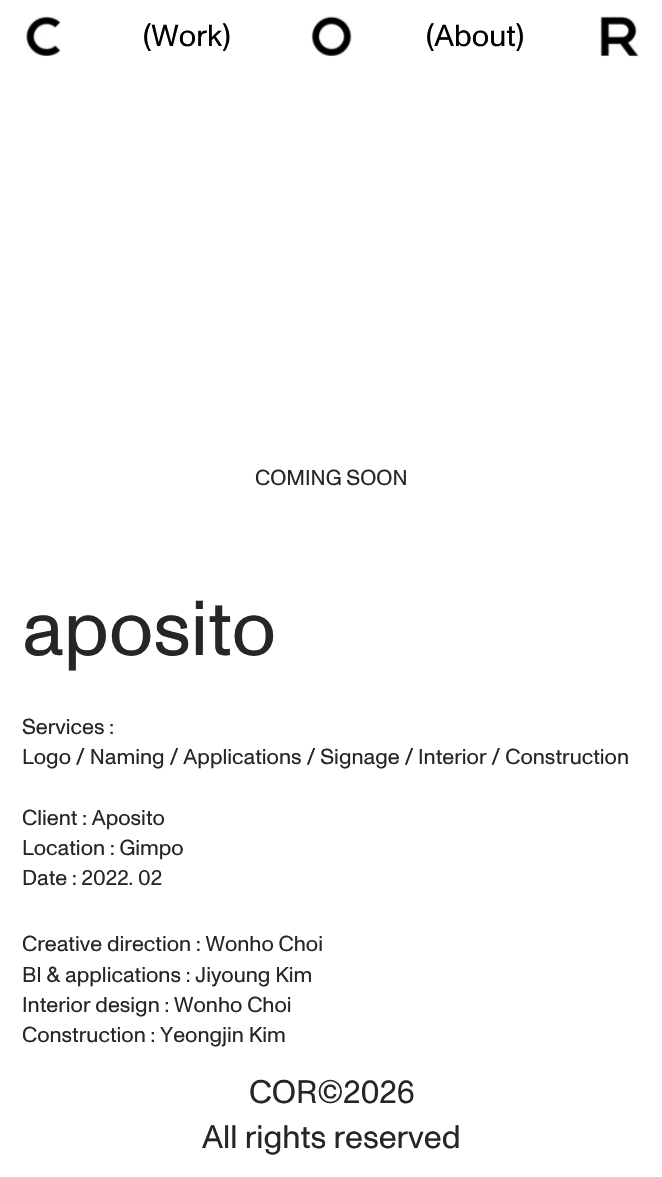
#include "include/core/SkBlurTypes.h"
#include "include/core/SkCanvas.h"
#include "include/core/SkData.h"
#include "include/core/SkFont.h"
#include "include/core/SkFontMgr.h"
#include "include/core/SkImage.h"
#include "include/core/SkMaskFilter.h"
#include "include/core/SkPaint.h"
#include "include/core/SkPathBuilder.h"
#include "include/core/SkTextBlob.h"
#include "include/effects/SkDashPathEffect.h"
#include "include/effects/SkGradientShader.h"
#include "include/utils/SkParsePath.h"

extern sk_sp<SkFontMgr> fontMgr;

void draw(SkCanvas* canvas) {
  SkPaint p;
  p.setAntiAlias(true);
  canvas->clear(SK_ColorWHITE);
  canvas->drawImageRect(SkImages::DeferredFromEncodedData(SkData::MakeFromFileName("images/1.png")), SkRect::MakeLTRB(26, 16, 61, 57), SkSamplingOptions());
  canvas->drawImageRect(SkImages::DeferredFromEncodedData(SkData::MakeFromFileName("images/2.png")), SkRect::MakeLTRB(311, 16, 352, 57), SkSamplingOptions());
  canvas->drawImageRect(SkImages::DeferredFromEncodedData(SkData::MakeFromFileName("images/3.png")), SkRect::MakeLTRB(600, 16, 639, 57), SkSamplingOptions());
  SkFont font1(fontMgr->matchFamilyStyle("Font", SkFontStyle::Normal()), 30.5f);
  font1.setSubpixel(true);
  p.setColor(SK_ColorBLACK);
  canvas->drawString("(Work)", 143, 46, font1, p);
  canvas->drawString("(About)", 426, 46, font1, p);
  SkFont font2(fontMgr->matchFamilyStyle("Font", SkFontStyle::Normal()), 21.6f);
  font2.setSubpixel(true);
  p.setColor(SkColorSetRGB(38, 38, 38));
  canvas->drawString("COMING SOON", 255, 485, font2, p);
  SkFont font3(fontMgr->matchFamilyStyle("Font", SkFontStyle::Normal()), 77.5f);
  font3.setSubpixel(true);
  canvas->drawString("aposito", 22, 655, font3, p);
  canvas->drawString("Services :", 22, 734, font2, p);
  canvas->drawString("Logo / Naming / Applications / Signage /", 22, 764, font2, p);
  canvas->drawString("Interior / Construction", 418, 764, font2, p);
  canvas->drawString("Client : Aposito", 22, 825, font2, p);
  canvas->drawString("Location : Gimpo", 22, 855, font2, p);
  canvas->drawString("Date : 2022. 02", 22, 885, font2, p);
  canvas->drawString("Creative direction : Wonho Choi", 22, 951, font2, p);
  canvas->drawString("BI & applications : Jiyoung Kim", 22, 982, font2, p);
  canvas->drawString("Interior design : Wonho Choi", 22, 1012, font2, p);
  canvas->drawString("Construction : Yeongjin Kim", 22, 1042, font2, p);
  SkFont font4(fontMgr->matchFamilyStyle("Font", SkFontStyle::Normal()), 32.5f);
  font4.setSubpixel(true);
  canvas->drawString("COR©2026", 249, 1103, font4, p);
  canvas->drawString("All rights reserved", 202, 1148, font4, p);
}
